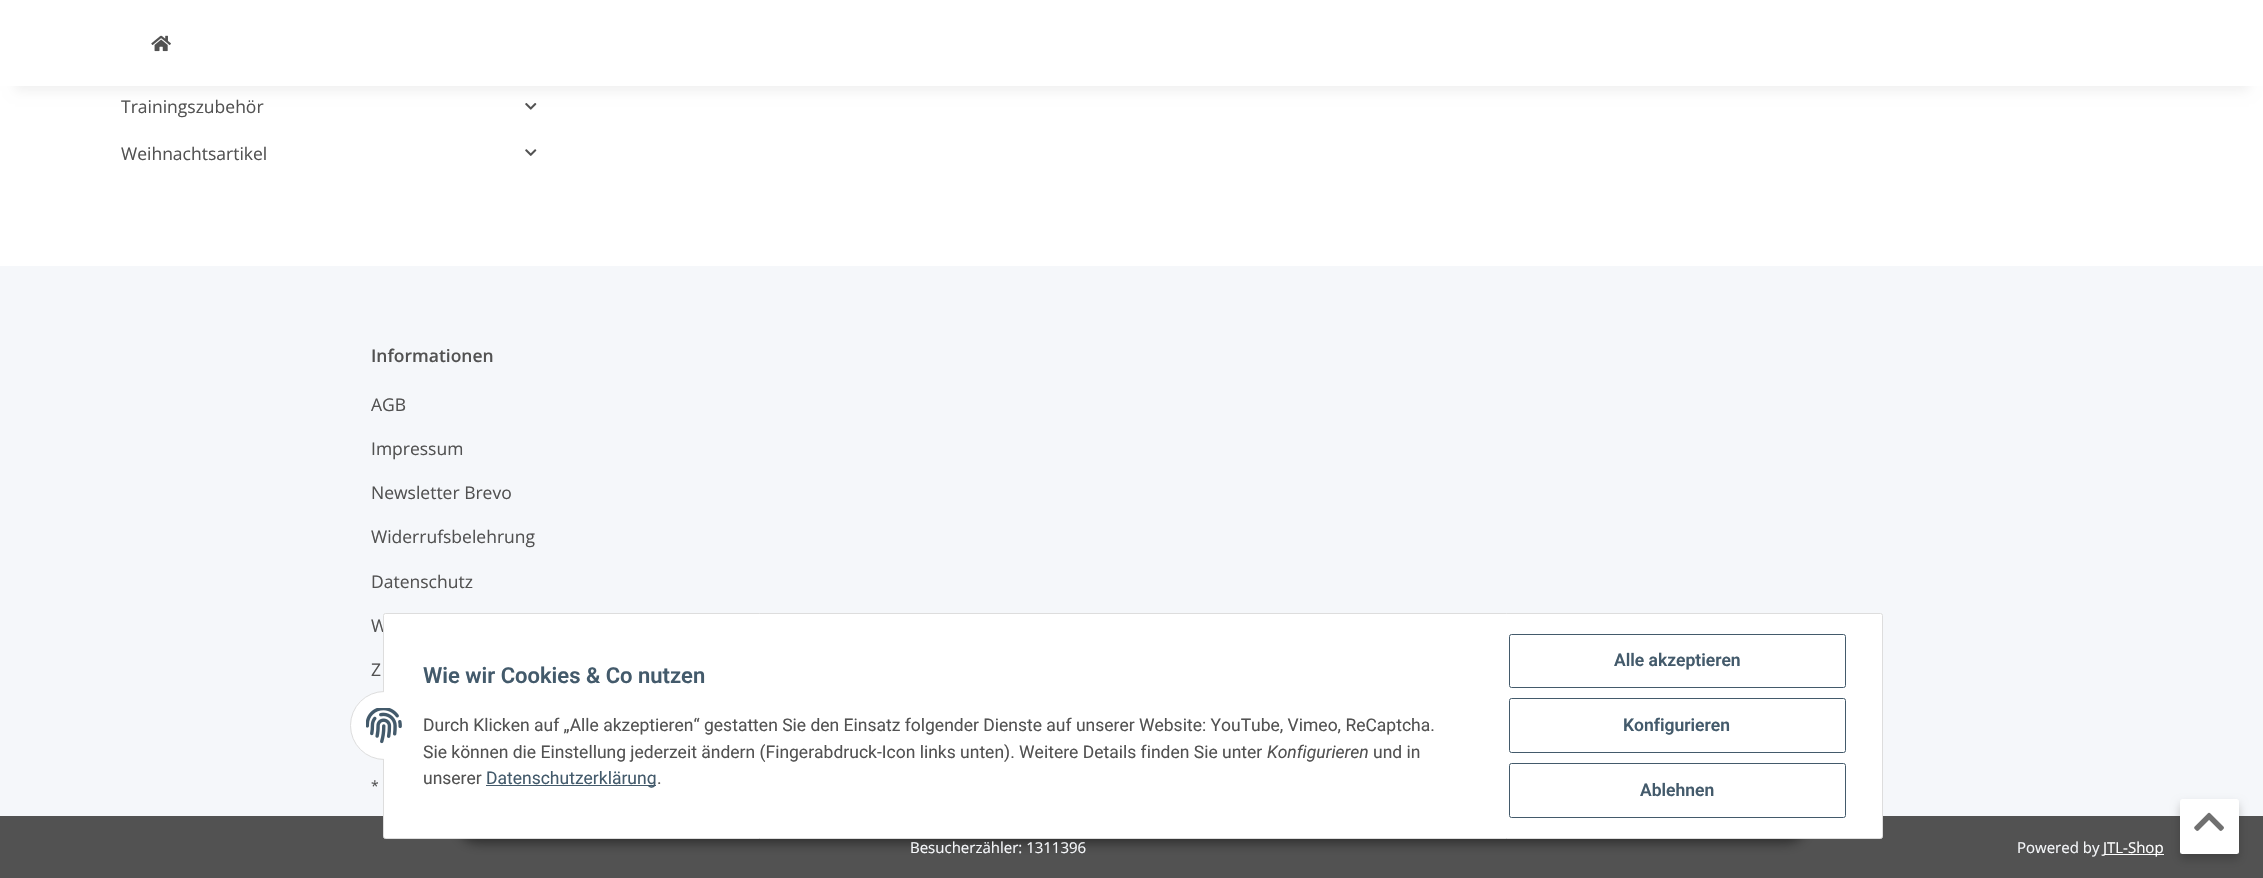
#include "include/core/SkBlurTypes.h"
#include "include/core/SkCanvas.h"
#include "include/core/SkData.h"
#include "include/core/SkFont.h"
#include "include/core/SkFontMgr.h"
#include "include/core/SkImage.h"
#include "include/core/SkMaskFilter.h"
#include "include/core/SkPaint.h"
#include "include/core/SkPathBuilder.h"
#include "include/core/SkTextBlob.h"
#include "include/effects/SkDashPathEffect.h"
#include "include/effects/SkGradientShader.h"
#include "include/utils/SkParsePath.h"

extern sk_sp<SkFontMgr> fontMgr;

void draw(SkCanvas* canvas) {
  SkPaint p;
  p.setAntiAlias(true);
  canvas->clear(SkColorSetRGB(245, 247, 250));
  p.setColor(SK_ColorWHITE);
  canvas->drawRect(SkRect::MakeLTRB(0, 86, 2263, 266), p);
  canvas->drawImageRect(SkImages::DeferredFromEncodedData(SkData::MakeFromFileName("images/2.png")), SkRect::MakeLTRB(525, 103, 537, 110), SkSamplingOptions());
  p.setColor(SkColorSetARGB(15, 0, 0, 0));
  p.setMaskFilter(SkMaskFilter::MakeBlur(kNormal_SkBlurStyle, 5.5f));
  canvas->drawRect(SkRect::MakeLTRB(15, 35, 2249, 91), p);
  p.setMaskFilter(nullptr);
  p.setColor(SK_ColorWHITE);
  canvas->drawRect(SkRect::MakeLTRB(0, 0, 2263, 86), p);
  canvas->drawImageRect(SkImages::DeferredFromEncodedData(SkData::MakeFromFileName("images/1.png")), SkRect::MakeLTRB(151, 35, 171, 52), SkSamplingOptions());
  canvas->drawImageRect(SkImages::DeferredFromEncodedData(SkData::MakeFromFileName("images/3.png")), SkRect::MakeLTRB(525, 149, 537, 156), SkSamplingOptions());
  p.setColor(SkColorSetRGB(82, 82, 82));
  canvas->drawRect(SkRect::MakeLTRB(0, 816, 2263, 878), p);
  p.setColor(SK_ColorWHITE);
  canvas->drawRect(SkRect::MakeLTRB(2104, 854, 2164, 855), p);
  p.setColor(SkColorSetARGB(51, 0, 0, 0));
  p.setMaskFilter(SkMaskFilter::MakeBlur(kNormal_SkBlurStyle, 5));
  canvas->drawRoundRect(SkRect::MakeLTRB(2180, 804, 2239, 859), 2.5f, 2.5f, p);
  p.setMaskFilter(nullptr);
  p.setColor(SK_ColorWHITE);
  canvas->drawRoundRect(SkRect::MakeLTRB(2180, 799, 2239, 854), 2.5f, 2.5f, p);
  canvas->drawImageRect(SkImages::DeferredFromEncodedData(SkData::MakeFromFileName("images/4.png")), SkRect::MakeLTRB(2194, 812, 2224, 831), SkSamplingOptions());
  p.setColor(SkColorSetARGB(115, 0, 0, 0));
  p.setMaskFilter(SkMaskFilter::MakeBlur(kNormal_SkBlurStyle, 6));
  canvas->drawRoundRect(SkRect::MakeLTRB(458, 803, 1806, 843), 20, 20, p);
  p.setMaskFilter(nullptr);
  SkFont font1(fontMgr->matchFamilyStyle("Open Sans", SkFontStyle::Normal()), 17.5f);
  font1.setSubpixel(true);
  p.setColor(SkColorSetRGB(82, 82, 82));
  canvas->drawString("Trainingszubehör", 121, 113, font1, p);
  canvas->drawString("Weihnachtsartikel", 121, 160, font1, p);
  SkFont font2(fontMgr->matchFamilyStyle("Open Sans", SkFontStyle(600, SkFontStyle::kNormal_Width, SkFontStyle::kUpright_Slant)), 17.5f);
  font2.setSubpixel(true);
  canvas->drawString("Informationen", 371, 362, font2, p);
  canvas->drawString("AGB", 371, 411, font1, p);
  canvas->drawString("Impressum", 371, 455, font1, p);
  canvas->drawString("Newsletter Brevo", 371, 499, font1, p);
  canvas->drawString("Widerrufsbelehrung", 371, 543, font1, p);
  canvas->drawString("Datenschutz", 371, 588, font1, p);
  canvas->drawString("W", 371, 632, font1, p);
  canvas->drawString("Z", 371, 676, font1, p);
  SkFont font3(fontMgr->matchFamilyStyle("Open Sans", SkFontStyle::Normal()), 14);
  font3.setSubpixel(true);
  canvas->drawString("*", 371, 791, font3, p);
  SkFont font4(fontMgr->matchFamilyStyle("Open Sans", SkFontStyle::Normal()), 15);
  font4.setSubpixel(true);
  p.setColor(SkColorSetRGB(245, 247, 250));
  canvas->drawString("Besucherzähler: 1311396", 910, 853, font4, p);
  canvas->drawString("Powered by", 2017, 853, font4, p);
  p.setColor(SK_ColorWHITE);
  canvas->drawString("JTL-Shop", 2103, 853, font4, p);
  canvas->drawRoundRect(SkRect::MakeLTRB(383.5f, 613.5f, 1882.5f, 838.5f), 2, 2, p);
  p.setStyle(SkPaint::kStroke_Style);
  p.setStrokeWidth(1);
  p.setColor(SkColorSetRGB(221, 221, 221));
  canvas->drawRoundRect(SkRect::MakeLTRB(383.5f, 613.5f, 1882.5f, 838.5f), 2, 2, p);
  p.setStyle(SkPaint::kFill_Style);
  p.setColor(SK_ColorWHITE);
  canvas->drawCircle(384.5f, 725.5f, 34, p);
  p.setStyle(SkPaint::kStroke_Style);
  p.setColor(SkColorSetRGB(221, 221, 221));
  canvas->drawCircle(384.5f, 725.5f, 34, p);
  p.setStyle(SkPaint::kFill_Style);
  p.setColor(SK_ColorWHITE);
  canvas->drawRect(SkRect::MakeLTRB(384, 691, 419, 760), p);
  canvas->drawImageRect(SkImages::DeferredFromEncodedData(SkData::MakeFromFileName("images/5.png")), SkRect::MakeLTRB(366, 708, 402, 744), SkSamplingOptions());
  SkFont font5(fontMgr->matchFamilyStyle("Roboto", SkFontStyle(600, SkFontStyle::kNormal_Width, SkFontStyle::kUpright_Slant)), 22);
  font5.setSubpixel(true);
  p.setColor(SkColorSetRGB(67, 90, 107));
  canvas->drawString("Wie wir Cookies & Co nutzen", 423, 683, font5, p);
  SkFont font6(fontMgr->matchFamilyStyle("Roboto", SkFontStyle::Normal()), 17.5f);
  font6.setSubpixel(true);
  p.setColor(SkColorSetRGB(82, 82, 82));
  canvas->drawString("Durch Klicken auf „Alle akzeptieren“ gestatten Sie den Einsatz folgender Dienste auf unserer Website: YouTube, Vimeo, ReCaptcha.", 423, 731, font6, p);
  canvas->drawString("Sie können die Einstellung jederzeit ändern (Fingerabdruck-Icon links unten). Weitere Details finden Sie unter", 423, 758, font6, p);
  SkFont font7(fontMgr->matchFamilyStyle("Roboto", SkFontStyle::Italic()), 17.5f);
  font7.setSubpixel(true);
  canvas->drawString("Konfigurieren", 1267, 758, font7, p);
  canvas->drawString("und in", 1373, 758, font6, p);
  canvas->drawString("unserer", 423, 784, font6, p);
  p.setColor(SkColorSetRGB(67, 90, 107));
  canvas->drawRect(SkRect::MakeLTRB(486, 785, 656, 786), p);
  canvas->drawString("Datenschutzerklärung", 486, 784, font6, p);
  p.setColor(SkColorSetRGB(82, 82, 82));
  canvas->drawString(".", 657, 784, font6, p);
  p.setStyle(SkPaint::kStroke_Style);
  p.setColor(SkColorSetRGB(67, 90, 107));
  canvas->drawRoundRect(SkRect::MakeLTRB(1509.5f, 634.5f, 1845.5f, 687.5f), 2, 2, p);
  SkFont font8(fontMgr->matchFamilyStyle("Roboto", SkFontStyle(600, SkFontStyle::kNormal_Width, SkFontStyle::kUpright_Slant)), 17.5f);
  font8.setSubpixel(true);
  p.setStyle(SkPaint::kFill_Style);
  canvas->drawString("Alle akzeptieren", 1614, 666, font8, p);
  p.setStyle(SkPaint::kStroke_Style);
  canvas->drawRoundRect(SkRect::MakeLTRB(1509.5f, 698.5f, 1845.5f, 752.5f), 2, 2, p);
  p.setStyle(SkPaint::kFill_Style);
  canvas->drawString("Konfigurieren", 1623, 731, font8, p);
  p.setStyle(SkPaint::kStroke_Style);
  canvas->drawRoundRect(SkRect::MakeLTRB(1509.5f, 763.5f, 1845.5f, 817.5f), 2, 2, p);
  p.setStyle(SkPaint::kFill_Style);
  canvas->drawString("Ablehnen", 1640, 796, font8, p);
}
